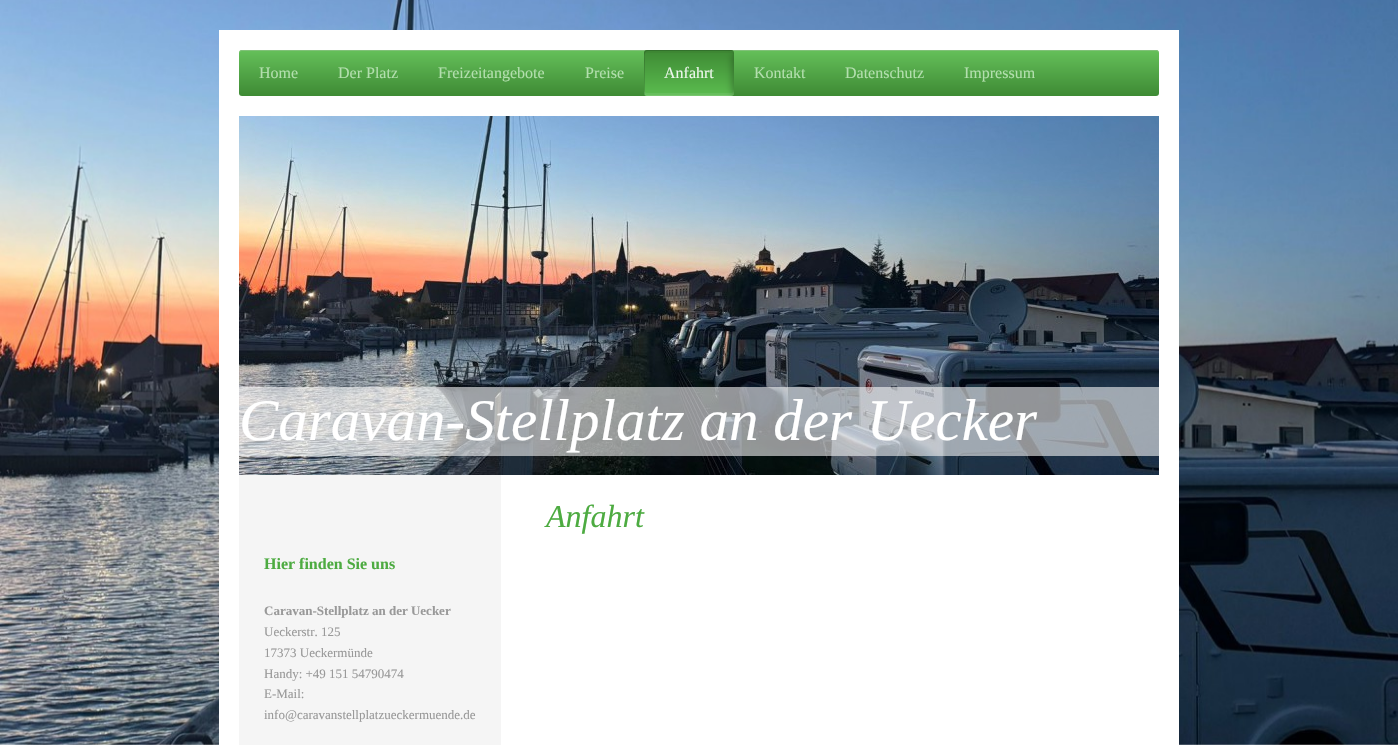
#include "include/core/SkBlurTypes.h"
#include "include/core/SkCanvas.h"
#include "include/core/SkData.h"
#include "include/core/SkFont.h"
#include "include/core/SkFontMgr.h"
#include "include/core/SkImage.h"
#include "include/core/SkMaskFilter.h"
#include "include/core/SkPaint.h"
#include "include/core/SkPathBuilder.h"
#include "include/core/SkTextBlob.h"
#include "include/effects/SkDashPathEffect.h"
#include "include/effects/SkGradientShader.h"
#include "include/utils/SkParsePath.h"

extern sk_sp<SkFontMgr> fontMgr;

void draw(SkCanvas* canvas) {
  SkPaint p;
  p.setAntiAlias(true);
  canvas->clear(SK_ColorWHITE);
  canvas->drawImageRect(SkImages::DeferredFromEncodedData(SkData::MakeFromFileName("images/1.png")), SkRect::MakeLTRB(0, 0, 1398, 745), SkSamplingOptions());
  p.setColor(SK_ColorWHITE);
  canvas->drawRect(SkRect::MakeLTRB(219, 30, 1179, 745), p);
  {
    const SkColor colors[] = {SkColorSetRGB(101, 192, 90), SkColorSetRGB(62, 138, 52)};
    const float stops[] = {0, 1};
    const SkPoint ends[] = {{239, 50}, {239, 96}};
    p.setShader(SkGradientShader::MakeLinear(ends, colors, stops, 2, SkTileMode::kClamp));
    p.setAlpha(255);
  }
  canvas->drawRoundRect(SkRect::MakeLTRB(239, 50, 1159, 96), 3, 3, p);
  p.setShader(nullptr);
  p.setColor(SkColorSetRGB(129, 193, 121));
  canvas->drawPath(SkPathBuilder().moveTo(242, 51).lineTo(1156, 51).cubicTo(1158, 51, 1159, 52, 1159, 54).cubicTo(1159, 52, 1158, 50, 1156, 50).lineTo(242, 50).cubicTo(240, 50, 239, 52, 239, 54).cubicTo(239, 52, 240, 51, 242, 51).close().detach(), p);
  {
    const SkColor colors[] = {SkColorSetRGB(91, 188, 79), SkColorSetRGB(62, 138, 52)};
    const float stops[] = {0, 1};
    const SkPoint ends[] = {{644, 96}, {644, 50}};
    p.setShader(SkGradientShader::MakeLinear(ends, colors, stops, 2, SkTileMode::kClamp));
    p.setAlpha(255);
  }
  canvas->drawRoundRect(SkRect::MakeLTRB(644, 50, 734, 96), 3, 3, p);
  p.setShader(nullptr);
  p.setColor(SkColorSetARGB(38, 0, 0, 0));
  canvas->drawPath(SkPathBuilder().moveTo(648, 51).lineTo(733, 51).cubicTo(733, 50, 732, 50, 731, 50).lineTo(647, 50).cubicTo(645, 50, 644, 51, 644, 53).lineTo(644, 93).cubicTo(644, 94, 644, 95, 645, 95).lineTo(645, 61).cubicTo(645, 58, 643, 51, 648, 51).close().detach(), p);
  p.setColor(SkColorSetARGB(10, 0, 0, 0));
  canvas->drawPath(SkPathBuilder().moveTo(647, 53).lineTo(731, 53).cubicTo(733, 53, 734, 54, 734, 56).lineTo(734, 53).cubicTo(734, 51, 733, 50, 731, 50).lineTo(647, 50).cubicTo(645, 50, 644, 51, 644, 53).lineTo(644, 56).cubicTo(644, 54, 645, 53, 647, 53).close().detach(), p);
  p.setColor(SkColorSetARGB(20, 255, 255, 255));
  canvas->drawPath(SkPathBuilder().moveTo(644, 90).lineTo(644, 93).cubicTo(644, 95, 645, 96, 647, 96).lineTo(731, 96).cubicTo(733, 96, 734, 95, 734, 93).lineTo(734, 90).cubicTo(734, 92, 733, 93, 731, 93).lineTo(647, 93).cubicTo(645, 93, 644, 92, 644, 90).close().detach(), p);
  p.setColor(SkColorSetARGB(26, 255, 255, 255));
  canvas->drawPath(SkPathBuilder().moveTo(644, 92).cubicTo(644, 100, 657, 96, 661, 96).lineTo(717, 96).cubicTo(721, 96, 734, 100, 734, 92).cubicTo(734, 94, 733, 95, 731, 95).lineTo(647, 95).cubicTo(645, 95, 644, 94, 644, 92).close().detach(), p);
  canvas->save();
  canvas->clipPath(SkPathBuilder().moveTo(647, 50).lineTo(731, 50).cubicTo(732.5f, 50, 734, 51.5f, 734, 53).lineTo(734, 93).cubicTo(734, 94.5f, 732.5f, 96, 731, 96).lineTo(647, 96).cubicTo(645.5f, 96, 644, 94.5f, 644, 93).lineTo(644, 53).cubicTo(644, 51.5f, 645.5f, 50, 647, 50).close().detach(), true);
  p.setColor(SkColorSetARGB(77, 0, 0, 0));
  p.setMaskFilter(SkMaskFilter::MakeBlur(kNormal_SkBlurStyle, 3.5f));
  canvas->drawRoundRect(SkRect::MakeLTRB(732, 52, 748, 98), 8, 8, p);
  p.setMaskFilter(nullptr);
  canvas->restore();
  canvas->drawImageRect(SkImages::DeferredFromEncodedData(SkData::MakeFromFileName("images/2.png")), SkRect::MakeLTRB(239, 116, 1159, 475), SkSamplingOptions());
  p.setColor(SkColorSetARGB(145, 255, 255, 255));
  canvas->drawRect(SkRect::MakeLTRB(239, 387, 1159, 456), p);
  p.setColor(SkColorSetRGB(245, 245, 245));
  canvas->drawRect(SkRect::MakeLTRB(239, 475, 501, 745), p);
  SkFont font1(fontMgr->matchFamilyStyle("Liberation Serif", SkFontStyle::Normal()), 16);
  font1.setSubpixel(true);
  p.setColor(SkColorSetRGB(179, 223, 174));
  canvas->drawString("Home", 259, 78, font1, p);
  canvas->drawString("Der Platz", 338, 78, font1, p);
  canvas->drawString("Freizeitangebote", 438, 78, font1, p);
  canvas->drawString("Preise", 585, 78, font1, p);
  p.setColor(SkColorSetRGB(237, 247, 236));
  canvas->drawString("Anfahrt", 664, 78, font1, p);
  p.setColor(SkColorSetRGB(179, 223, 174));
  canvas->drawString("Kontakt", 754, 78, font1, p);
  canvas->drawString("Datenschutz", 845, 78, font1, p);
  canvas->drawString("Impressum", 964, 78, font1, p);
  SkFont font2(fontMgr->matchFamilyStyle("Liberation Serif", SkFontStyle::Italic()), 59);
  font2.setSubpixel(true);
  p.setColor(SK_ColorWHITE);
  canvas->drawString("Caravan-Stellplatz an der Uecker", 239, 440, font2, p);
  SkFont font3(fontMgr->matchFamilyStyle("Liberation Serif", SkFontStyle::Italic()), 32);
  font3.setSubpixel(true);
  p.setColor(SkColorSetRGB(77, 171, 65));
  canvas->drawString("Anfahrt", 546, 527, font3, p);
  SkFont font4(fontMgr->matchFamilyStyle("Liberation Serif", SkFontStyle::Bold()), 16);
  font4.setSubpixel(true);
  canvas->drawString("Hier finden Sie uns", 264, 569, font4, p);
  SkFont font5(fontMgr->matchFamilyStyle("Liberation Serif", SkFontStyle::Bold()), 13);
  font5.setSubpixel(true);
  p.setColor(SkColorSetRGB(153, 153, 153));
  canvas->drawString("Caravan-Stellplatz an der Uecker", 264, 615, font5, p);
  SkFont font6(fontMgr->matchFamilyStyle("Liberation Serif", SkFontStyle::Normal()), 13);
  font6.setSubpixel(true);
  canvas->drawString("Ueckerstr. 125", 264, 636, font6, p);
  canvas->drawString("17373 Ueckermünde", 264, 657, font6, p);
  canvas->drawString("Handy: +49 151 54790474", 264, 678, font6, p);
  canvas->drawString("E-Mail:", 264, 698, font6, p);
  canvas->drawString("info@caravanstellplatzueckermuende.de", 264, 719, font6, p);
}
